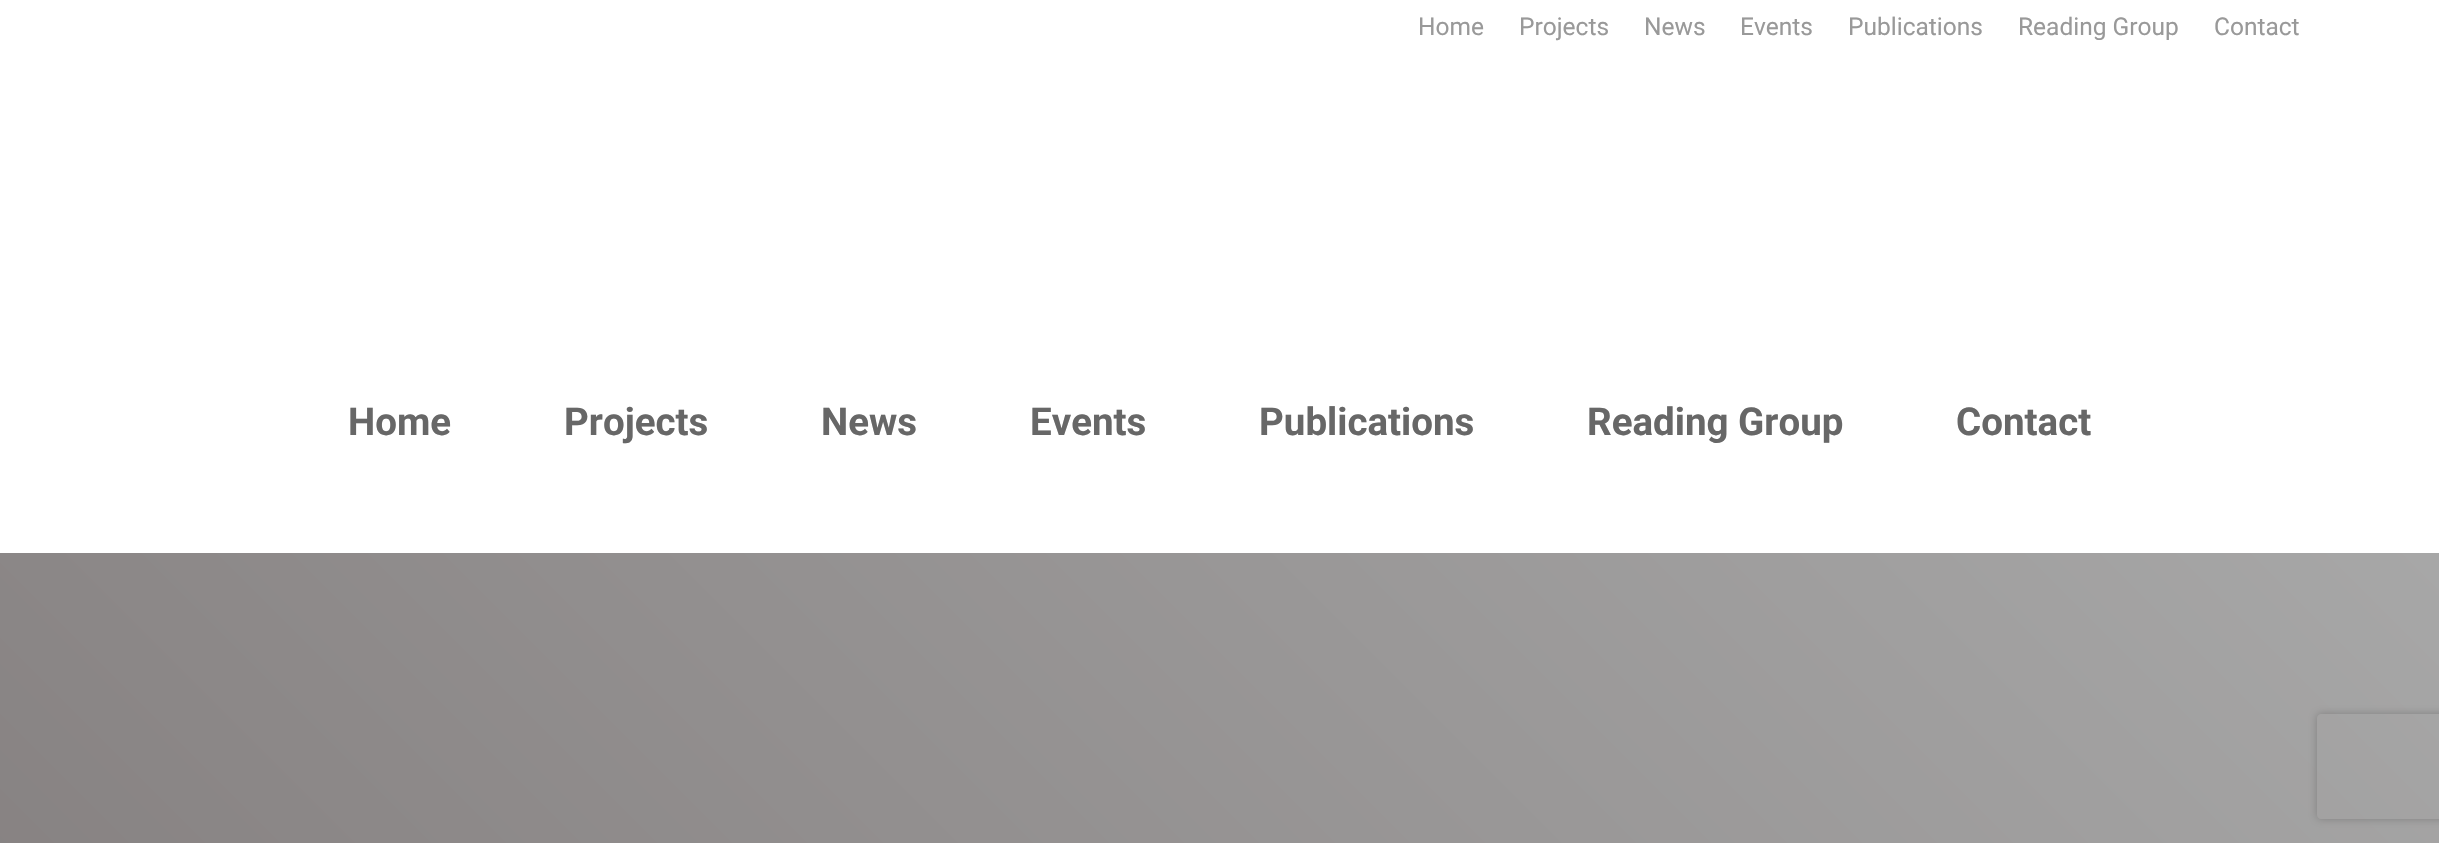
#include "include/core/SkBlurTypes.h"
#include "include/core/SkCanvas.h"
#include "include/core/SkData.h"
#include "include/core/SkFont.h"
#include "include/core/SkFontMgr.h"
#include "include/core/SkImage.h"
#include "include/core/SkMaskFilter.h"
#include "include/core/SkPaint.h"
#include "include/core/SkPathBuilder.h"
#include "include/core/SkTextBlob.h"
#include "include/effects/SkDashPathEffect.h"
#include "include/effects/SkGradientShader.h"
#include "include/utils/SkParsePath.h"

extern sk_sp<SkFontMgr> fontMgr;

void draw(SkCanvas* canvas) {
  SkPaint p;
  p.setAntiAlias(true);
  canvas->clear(SK_ColorWHITE);
  {
    const SkColor colors[] = {SkColorSetRGB(133, 128, 128), SkColorSetRGB(167, 167, 167)};
    const float stops[] = {0, 1};
    const SkPoint ends[] = {{485, 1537}, {1954, 68}};
    p.setShader(SkGradientShader::MakeLinear(ends, colors, stops, 2, SkTileMode::kClamp));
    p.setAlpha(255);
  }
  canvas->drawRect(SkRect::MakeLTRB(0, 553, 2439, 843), p);
  canvas->save();
  canvas->clipPath(SkPathBuilder(SkPathFillType::kEvenOdd).moveTo(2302, 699).lineTo(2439, 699).lineTo(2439, 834).lineTo(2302, 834).close().moveTo(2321, 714).lineTo(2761, 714).cubicTo(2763, 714, 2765, 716, 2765, 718).lineTo(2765, 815).cubicTo(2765, 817, 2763, 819, 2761, 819).lineTo(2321, 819).cubicTo(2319, 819, 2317, 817, 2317, 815).lineTo(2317, 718).cubicTo(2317, 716, 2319, 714, 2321, 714).close().detach(), true);
  p.setShader(nullptr);
  p.setColor(SkColorSetRGB(128, 128, 128));
  p.setMaskFilter(SkMaskFilter::MakeBlur(kNormal_SkBlurStyle, 4.5f));
  canvas->drawRoundRect(SkRect::MakeLTRB(2317, 714, 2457, 819), 4, 4, p);
  p.setMaskFilter(nullptr);
  canvas->restore();
  SkFont font1(fontMgr->matchFamilyStyle("Roboto", SkFontStyle::Normal()), 24.5f);
  font1.setSubpixel(true);
  p.setColor(SkColorSetRGB(153, 153, 153));
  canvas->drawString("Home", 1418, 35, font1, p);
  canvas->drawString("Projects", 1519, 35, font1, p);
  canvas->drawString("News", 1644, 35, font1, p);
  canvas->drawString("Events", 1740, 35, font1, p);
  canvas->drawString("Publications", 1848, 35, font1, p);
  canvas->drawString("Reading Group", 2018, 35, font1, p);
  canvas->drawString("Contact", 2214, 35, font1, p);
  SkFont font2(fontMgr->matchFamilyStyle("Roboto", SkFontStyle::Bold()), 38.5f);
  font2.setSubpixel(true);
  p.setColor(SkColorSetRGB(103, 103, 103));
  canvas->drawString("Home", 348, 435, font2, p);
  canvas->drawString("Projects", 564, 435, font2, p);
  canvas->drawString("News", 821, 435, font2, p);
  canvas->drawString("Events", 1030, 435, font2, p);
  canvas->drawString("Publications", 1259, 435, font2, p);
  canvas->drawString("Reading Group", 1587, 435, font2, p);
  canvas->drawString("Contact", 1956, 435, font2, p);
}
